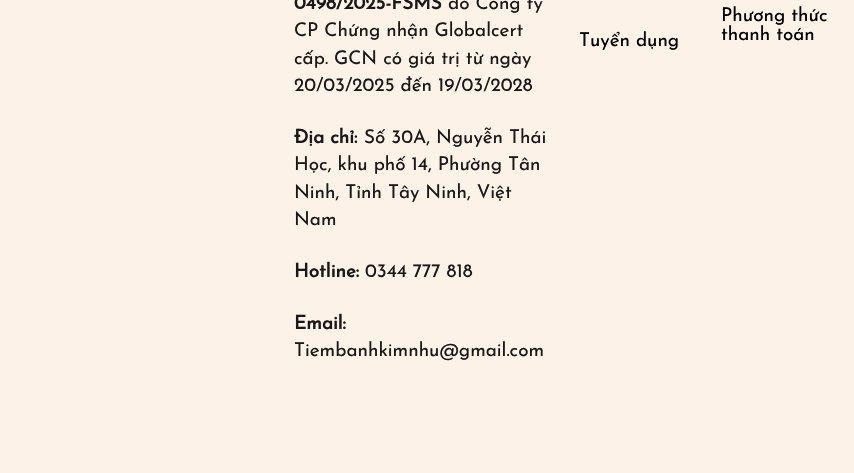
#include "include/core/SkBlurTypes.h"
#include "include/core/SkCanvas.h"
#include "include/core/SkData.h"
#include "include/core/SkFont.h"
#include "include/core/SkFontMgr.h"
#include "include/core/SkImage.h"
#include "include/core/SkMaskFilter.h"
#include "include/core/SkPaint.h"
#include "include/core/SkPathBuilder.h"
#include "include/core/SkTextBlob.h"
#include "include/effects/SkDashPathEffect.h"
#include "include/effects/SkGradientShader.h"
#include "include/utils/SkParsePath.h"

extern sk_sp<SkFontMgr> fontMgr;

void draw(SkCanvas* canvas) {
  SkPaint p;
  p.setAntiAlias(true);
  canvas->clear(SkColorSetRGB(253, 242, 231));
  SkFont font1(fontMgr->matchFamilyStyle("Josefin Sans", SkFontStyle::Bold()), 18.9f);
  font1.setSubpixel(true);
  p.setColor(SkColorSetRGB(26, 24, 24));
  canvas->drawString("0498/2025-FSMS", 294, 9, font1, p);
  SkFont font2(fontMgr->matchFamilyStyle("Josefin Sans", SkFontStyle(100, SkFontStyle::kNormal_Width, SkFontStyle::kUpright_Slant)), 18.9f);
  font2.setSubpixel(true);
  canvas->drawString("do Công ty", 448, 9, font2, p);
  canvas->drawString("CP Chứng nhận Globalcert", 294, 36, font2, p);
  canvas->drawString("cấp. GCN có giá trị từ ngày", 294, 64, font2, p);
  canvas->drawString("20/03/2025 đến 19/03/2028", 294, 91, font2, p);
  canvas->drawString("Địa chỉ:", 294, 143, font1, p);
  canvas->drawString("Số 30A, Nguyễn Thái", 364, 143, font2, p);
  canvas->drawString("Học, khu phố 14, Phường Tân", 294, 170, font2, p);
  canvas->drawString("Ninh, Tỉnh Tây Ninh, Việt", 294, 198, font2, p);
  canvas->drawString("Nam", 294, 225, font2, p);
  canvas->drawString("Hotline:", 294, 277, font1, p);
  canvas->drawString("0344 777 818", 365, 277, font2, p);
  canvas->drawString("Email:", 294, 329, font1, p);
  canvas->drawString("Tiembanhkimnhu@gmail.com", 294, 356, font2, p);
  p.setColor(SK_ColorBLACK);
  canvas->drawString("Tuyển dụng", 579, 46, font2, p);
  canvas->drawString("Phương thức", 721, 21, font2, p);
  canvas->drawString("thanh toán", 721, 40, font2, p);
}
